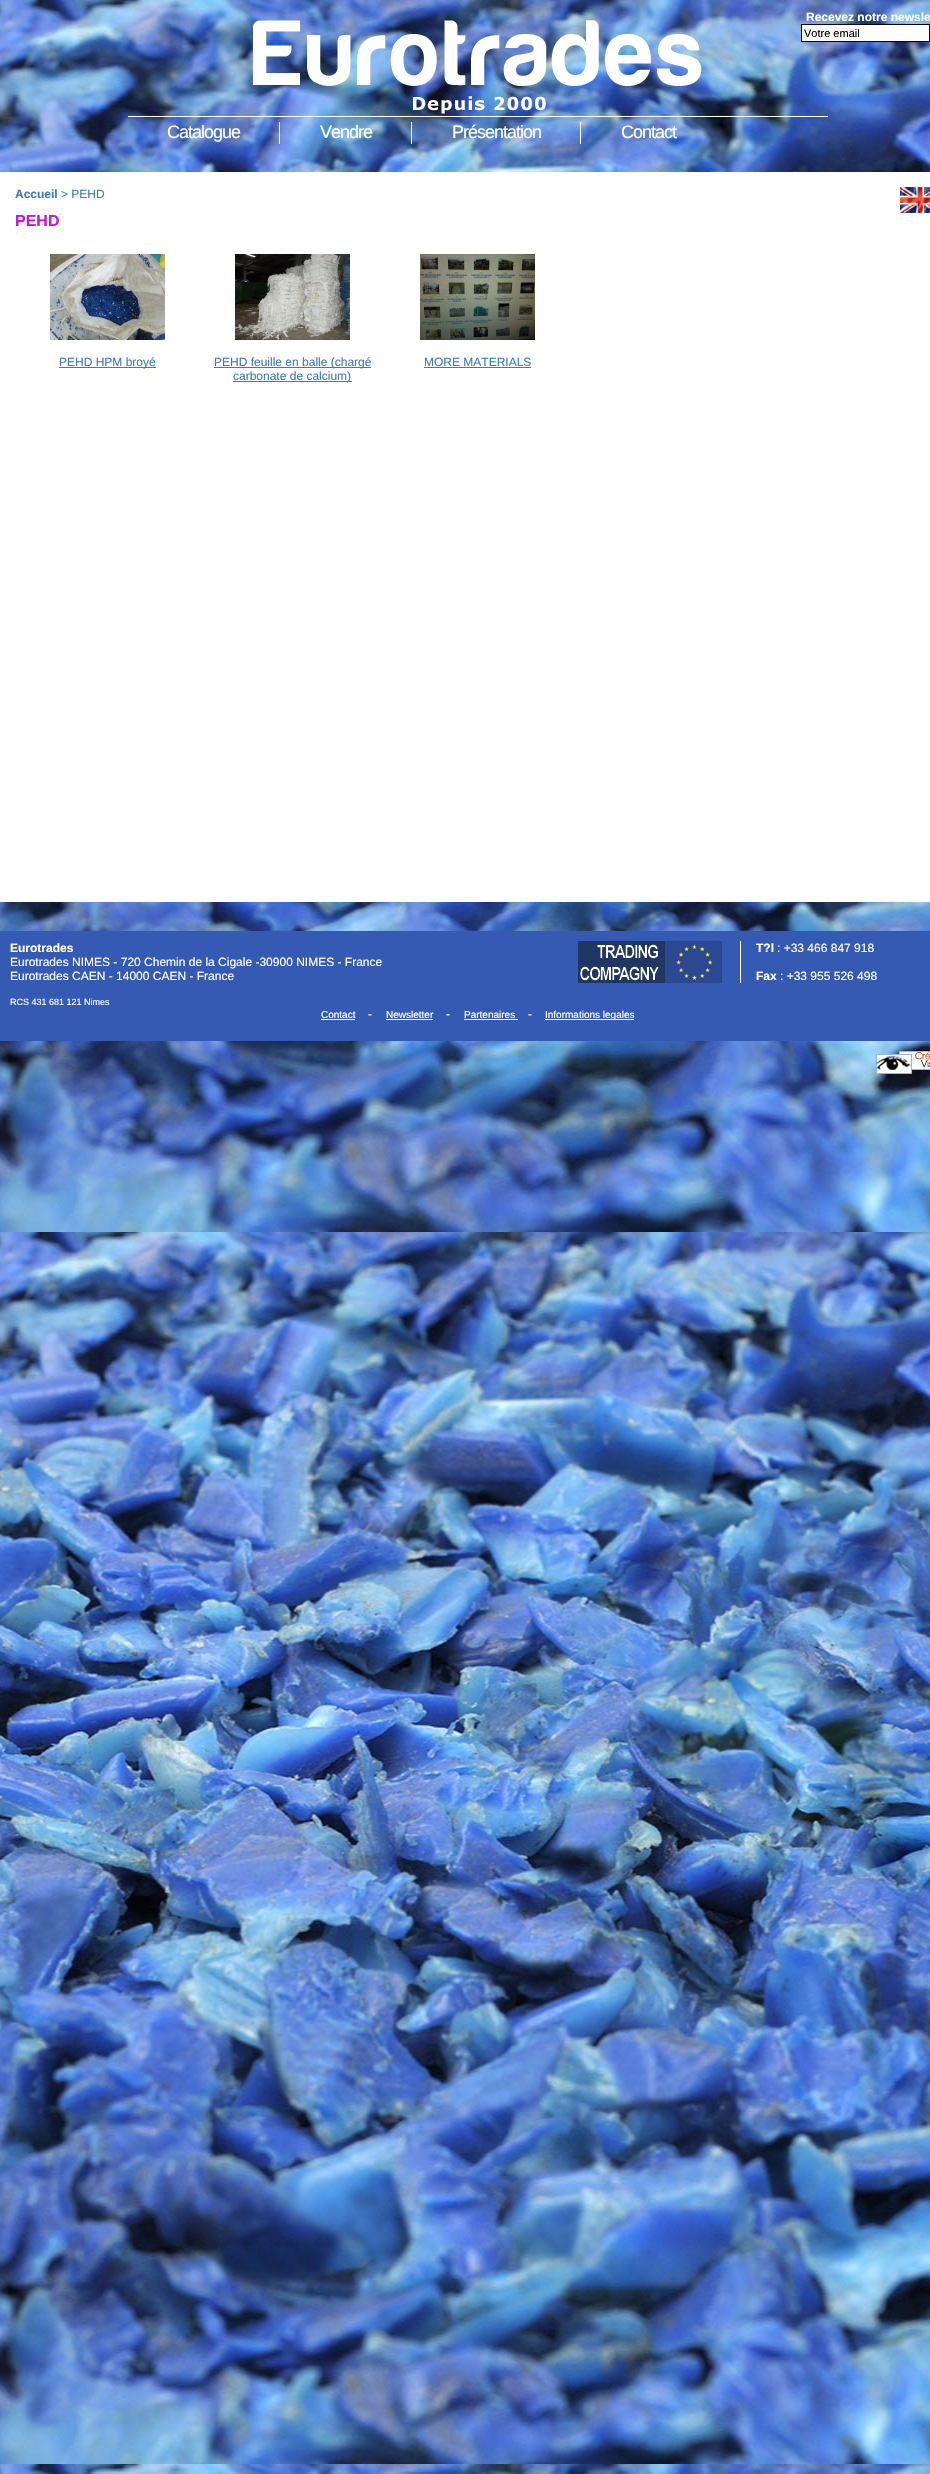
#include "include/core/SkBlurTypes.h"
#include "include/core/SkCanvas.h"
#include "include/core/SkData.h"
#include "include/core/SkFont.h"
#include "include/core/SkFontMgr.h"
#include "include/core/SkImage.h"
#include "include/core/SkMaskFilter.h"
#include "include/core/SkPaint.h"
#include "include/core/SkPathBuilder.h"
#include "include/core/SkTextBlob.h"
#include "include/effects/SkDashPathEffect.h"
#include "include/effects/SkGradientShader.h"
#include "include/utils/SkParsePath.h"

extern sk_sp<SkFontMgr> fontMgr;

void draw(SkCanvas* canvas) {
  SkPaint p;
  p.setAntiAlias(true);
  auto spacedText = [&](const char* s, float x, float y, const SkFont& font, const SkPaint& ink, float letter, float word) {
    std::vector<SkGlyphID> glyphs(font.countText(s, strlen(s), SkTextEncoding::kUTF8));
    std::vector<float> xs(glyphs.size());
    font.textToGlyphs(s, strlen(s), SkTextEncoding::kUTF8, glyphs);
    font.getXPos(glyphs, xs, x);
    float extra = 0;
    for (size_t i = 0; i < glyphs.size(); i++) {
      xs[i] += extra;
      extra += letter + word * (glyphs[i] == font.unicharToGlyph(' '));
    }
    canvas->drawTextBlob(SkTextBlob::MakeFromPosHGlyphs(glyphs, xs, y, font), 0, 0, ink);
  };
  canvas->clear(SK_ColorWHITE);
  canvas->drawImageRect(SkImages::DeferredFromEncodedData(SkData::MakeFromFileName("images/1.png")), SkRect::MakeLTRB(0, 0, 930, 2474), SkSamplingOptions());
  canvas->drawImageRect(SkImages::DeferredFromEncodedData(SkData::MakeFromFileName("images/2.png")), SkRect::MakeLTRB(253, 20, 702, 114), SkSamplingOptions());
  p.setColor(SK_ColorWHITE);
  canvas->drawRect(SkRect::MakeLTRB(801.5f, 24.5f, 929.5f, 41.5f), p);
  p.setStyle(SkPaint::kStroke_Style);
  p.setStrokeWidth(1);
  p.setColor(SK_ColorBLACK);
  canvas->drawRect(SkRect::MakeLTRB(801.5f, 24.5f, 929.5f, 41.5f), p);
  p.setStyle(SkPaint::kFill_Style);
  p.setColor(SK_ColorWHITE);
  canvas->drawRect(SkRect::MakeLTRB(128, 116, 828, 117), p);
  canvas->drawRect(SkRect::MakeLTRB(279, 122, 280, 144), p);
  canvas->drawRect(SkRect::MakeLTRB(411, 122, 412, 144), p);
  canvas->drawRect(SkRect::MakeLTRB(580, 122, 581, 144), p);
  canvas->drawRect(SkRect::MakeLTRB(0, 172, 930, 902), p);
  canvas->drawImageRect(SkImages::DeferredFromEncodedData(SkData::MakeFromFileName("images/3.png")), SkRect::MakeLTRB(900, 187, 930, 213), SkSamplingOptions());
  canvas->drawImageRect(SkImages::DeferredFromEncodedData(SkData::MakeFromFileName("images/4.png")), SkRect::MakeLTRB(50, 253, 165, 341), SkSamplingOptions());
  p.setColor(SkColorSetRGB(58, 123, 196));
  canvas->drawRect(SkRect::MakeLTRB(59, 367, 156, 368), p);
  canvas->drawImageRect(SkImages::DeferredFromEncodedData(SkData::MakeFromFileName("images/5.png")), SkRect::MakeLTRB(235, 254, 350, 341), SkSamplingOptions());
  canvas->drawRect(SkRect::MakeLTRB(214, 367, 371, 368), p);
  canvas->drawRect(SkRect::MakeLTRB(233, 381, 352, 382), p);
  canvas->drawImageRect(SkImages::DeferredFromEncodedData(SkData::MakeFromFileName("images/6.png")), SkRect::MakeLTRB(420, 253, 535, 341), SkSamplingOptions());
  canvas->drawRect(SkRect::MakeLTRB(424, 367, 531, 368), p);
  p.setColor(SkColorSetRGB(53, 90, 179));
  canvas->drawRect(SkRect::MakeLTRB(0, 931, 930, 1041), p);
  canvas->drawImageRect(SkImages::DeferredFromEncodedData(SkData::MakeFromFileName("images/7.png")), SkRect::MakeLTRB(578, 941, 722, 983), SkSamplingOptions());
  p.setColor(SK_ColorWHITE);
  canvas->drawRect(SkRect::MakeLTRB(740, 941, 741, 983), p);
  canvas->drawRect(SkRect::MakeLTRB(321, 1019, 355, 1020), p);
  canvas->drawRect(SkRect::MakeLTRB(386, 1019, 433, 1020), p);
  canvas->drawRect(SkRect::MakeLTRB(464, 1019, 518, 1020), p);
  canvas->drawRect(SkRect::MakeLTRB(545, 1019, 634, 1020), p);
  canvas->drawImageRect(SkImages::DeferredFromEncodedData(SkData::MakeFromFileName("images/8.png")), SkRect::MakeLTRB(876, 1051, 930, 1074), SkSamplingOptions());
  SkFont font1(fontMgr->matchFamilyStyle("Liberation Sans", SkFontStyle::Bold()), 12);
  font1.setSubpixel(true);
  canvas->drawString("Recevez notre newsle", 806, 21, font1, p);
  SkFont font2(fontMgr->matchFamilyStyle("Liberation Sans", SkFontStyle::Normal()), 11);
  font2.setSubpixel(true);
  p.setColor(SK_ColorBLACK);
  canvas->drawString("Votre email", 804, 37, font2, p);
  SkFont font3(fontMgr->matchFamilyStyle("Liberation Sans", SkFontStyle::Normal()), 18);
  font3.setSubpixel(true);
  p.setColor(SK_ColorWHITE);
  spacedText("Catalogue", 167, 138, font3, p, -1, 0);
  spacedText("Vendre", 320, 138, font3, p, -1, 0);
  spacedText("Présentation", 452, 138, font3, p, -1, 0);
  spacedText("Contact", 621, 138, font3, p, -1, 0);
  p.setColor(SkColorSetRGB(58, 123, 196));
  canvas->drawString("Accueil", 15, 198, font1, p);
  SkFont font4(fontMgr->matchFamilyStyle("Liberation Sans", SkFontStyle::Normal()), 12);
  font4.setSubpixel(true);
  canvas->drawString("> PEHD", 61, 198, font4, p);
  SkFont font5(fontMgr->matchFamilyStyle("Liberation Sans", SkFontStyle::Bold()), 16);
  font5.setSubpixel(true);
  p.setColor(SkColorSetRGB(194, 25, 209));
  canvas->drawString("PEHD", 15, 226, font5, p);
  p.setColor(SkColorSetRGB(58, 123, 196));
  canvas->drawString("PEHD HPM broyé", 59, 366, font4, p);
  canvas->drawString("PEHD feuille en balle (chargé", 214, 366, font4, p);
  canvas->drawString("carbonate de calcium)", 233, 380, font4, p);
  canvas->drawString("MORE MATERIALS", 424, 366, font4, p);
  p.setColor(SK_ColorWHITE);
  canvas->drawString("Eurotrades", 10, 952, font1, p);
  canvas->drawString("Eurotrades NIMES - 720 Chemin de la Cigale -30900 NIMES - France", 10, 966, font4, p);
  canvas->drawString("Eurotrades CAEN - 14000 CAEN - France", 10, 980, font4, p);
  SkFont font6(fontMgr->matchFamilyStyle("Liberation Sans", SkFontStyle::Normal()), 9);
  font6.setSubpixel(true);
  canvas->drawString("RCS 431 681 121 Nimes", 10, 1005, font6, p);
  canvas->drawString("T?l", 756, 952, font1, p);
  canvas->drawString(": +33 466 847 918", 777, 952, font4, p);
  canvas->drawString("Fax", 756, 980, font1, p);
  canvas->drawString(": +33 955 526 498", 780, 980, font4, p);
  SkFont font7(fontMgr->matchFamilyStyle("Liberation Sans", SkFontStyle::Normal()), 10);
  font7.setSubpixel(true);
  canvas->drawString("Contact", 321, 1018, font7, p);
  canvas->drawString("-", 368, 1018, font4, p);
  canvas->drawString("Newsletter", 386, 1018, font7, p);
  canvas->drawString("-", 446, 1018, font4, p);
  canvas->drawString("Partenaires", 464, 1018, font7, p);
  canvas->drawString("-", 528, 1018, font4, p);
  canvas->drawString("Informations legales", 545, 1018, font7, p);
}
